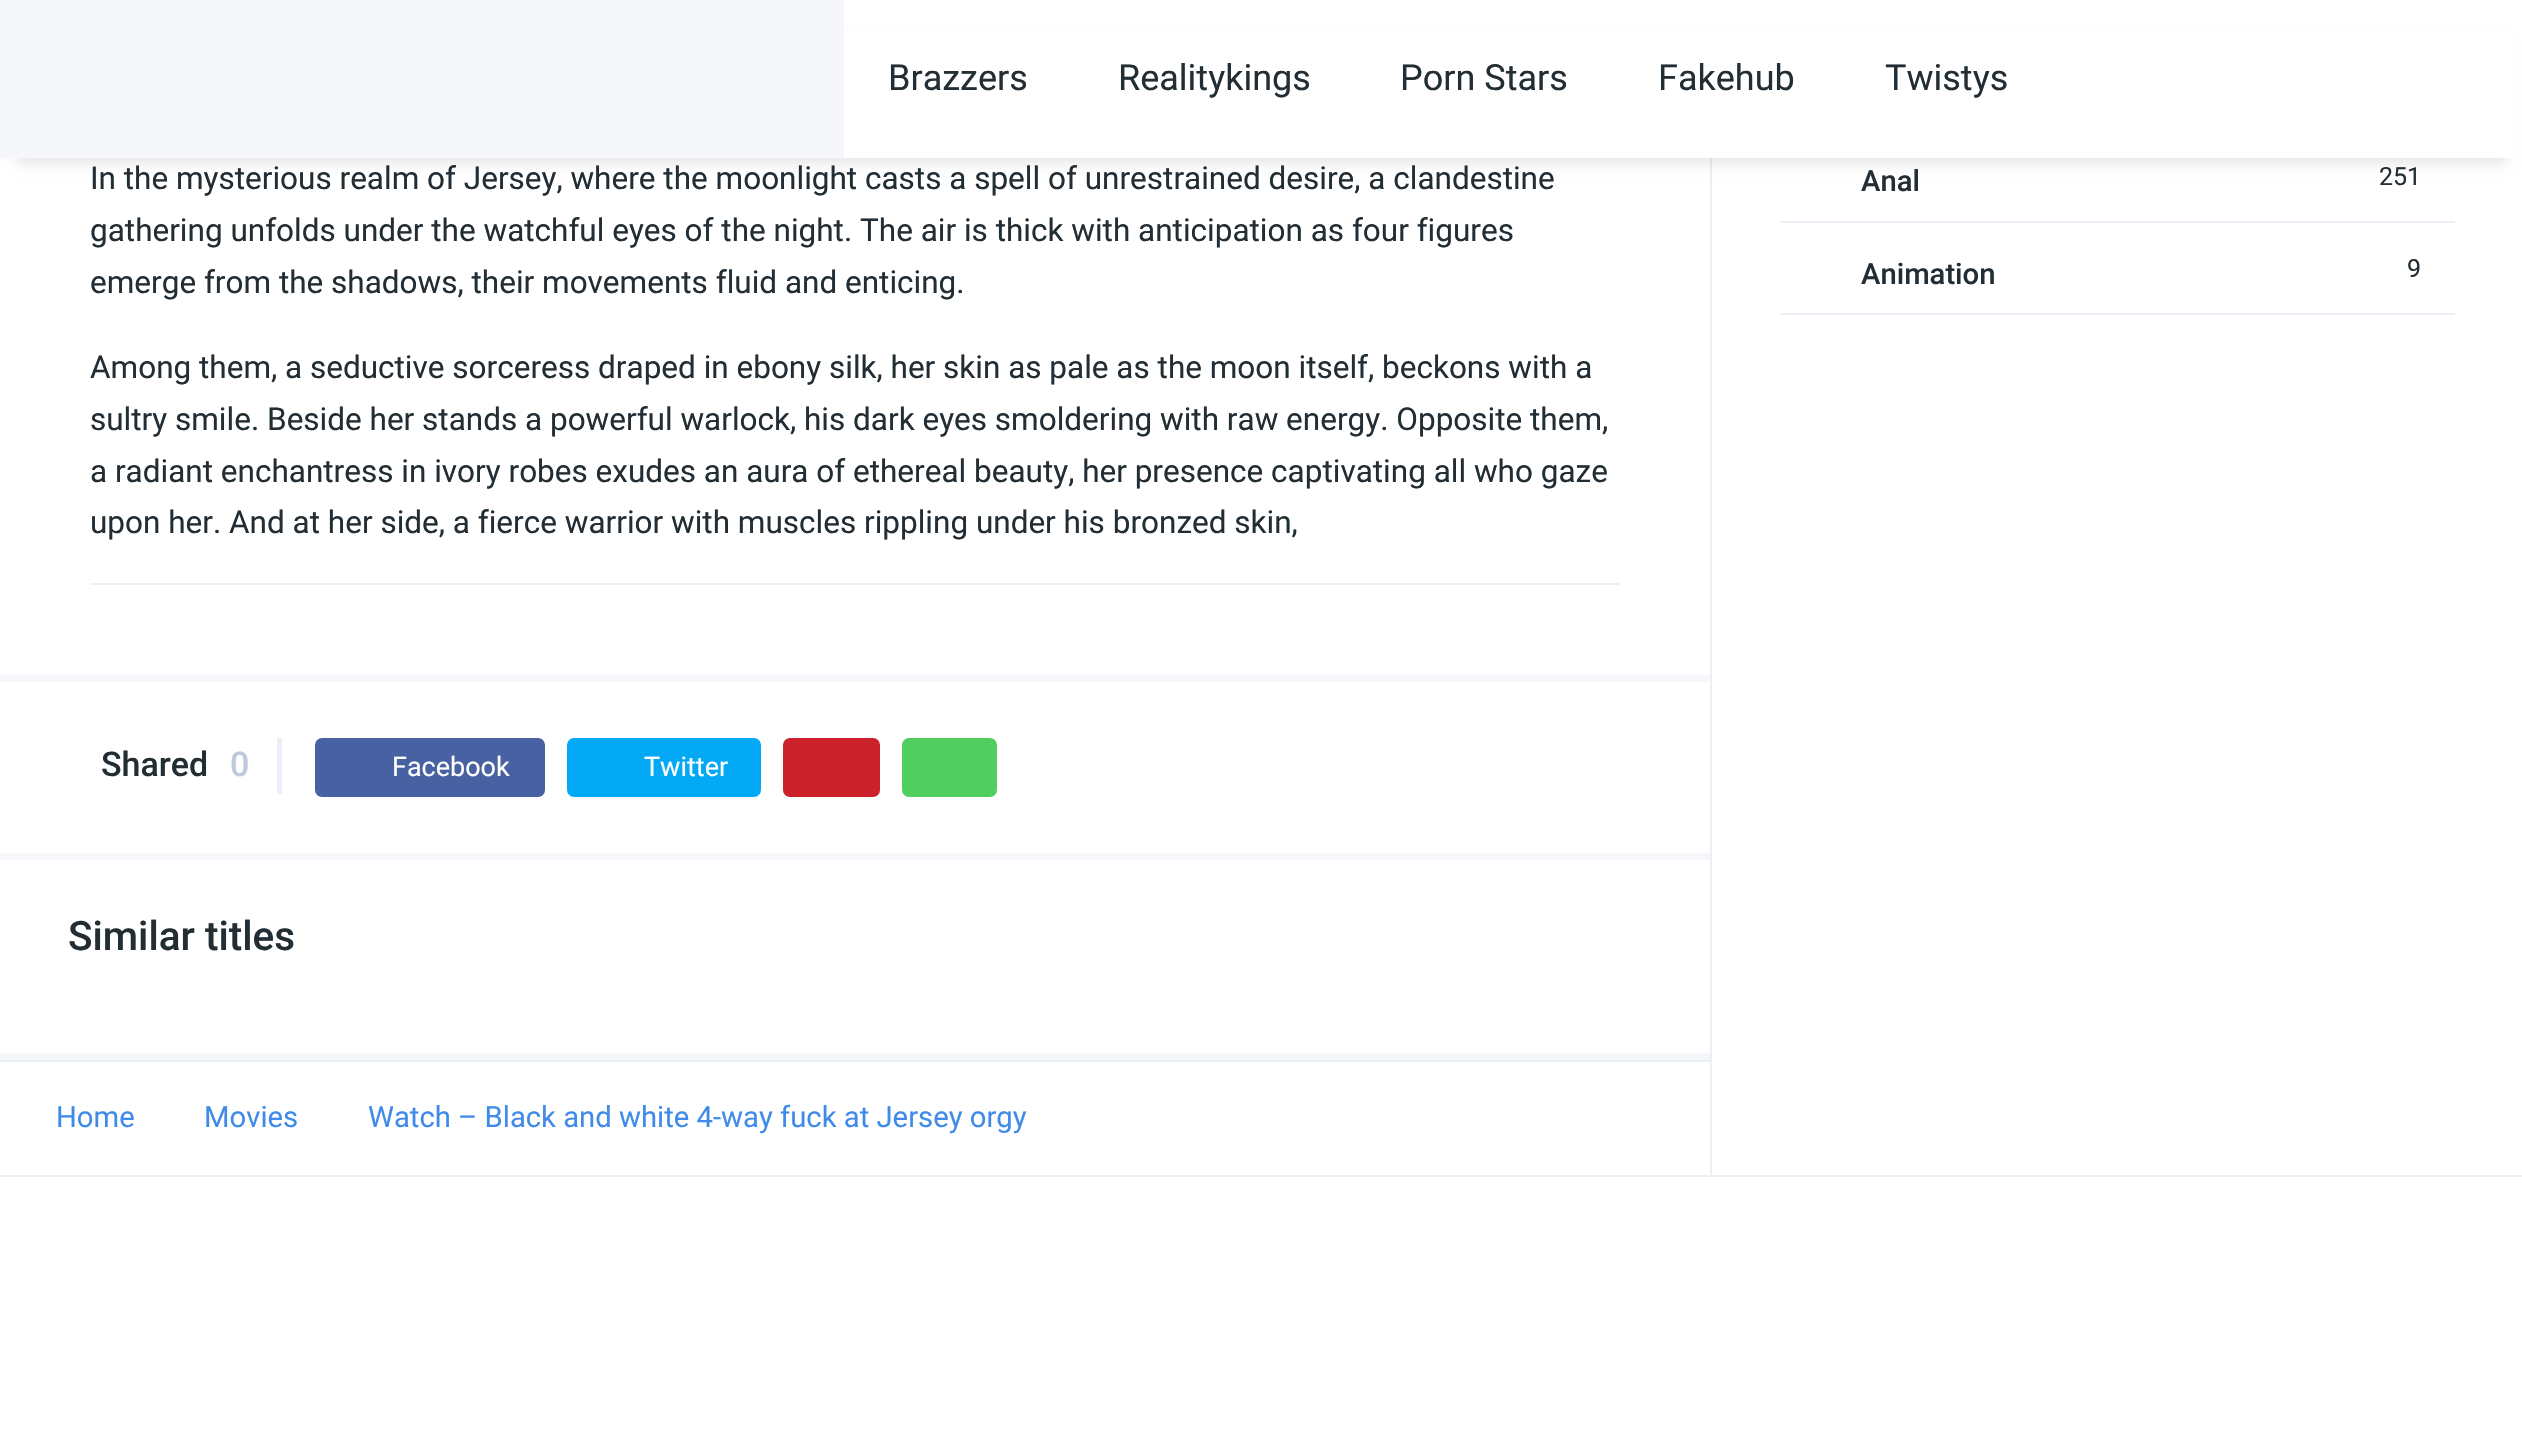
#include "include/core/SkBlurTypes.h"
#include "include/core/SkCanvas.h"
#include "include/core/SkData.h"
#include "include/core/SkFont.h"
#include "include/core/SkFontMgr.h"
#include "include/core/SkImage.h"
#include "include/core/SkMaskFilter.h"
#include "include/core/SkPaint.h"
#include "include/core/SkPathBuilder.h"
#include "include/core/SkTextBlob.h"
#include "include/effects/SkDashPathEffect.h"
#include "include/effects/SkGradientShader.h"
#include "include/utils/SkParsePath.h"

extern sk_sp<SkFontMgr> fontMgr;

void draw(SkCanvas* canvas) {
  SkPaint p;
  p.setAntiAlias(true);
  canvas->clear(SK_ColorWHITE);
  p.setColor(SkColorSetRGB(236, 239, 245));
  canvas->drawRect(SkRect::MakeLTRB(1710, 158, 1712, 1175), p);
  p.setColor(SkColorSetARGB(23, 0, 0, 0));
  p.setMaskFilter(SkMaskFilter::MakeBlur(kNormal_SkBlurStyle, 5.5f));
  canvas->drawRect(SkRect::MakeLTRB(16, 38, 2507, 164), p);
  p.setMaskFilter(nullptr);
  p.setColor(SK_ColorWHITE);
  canvas->drawRect(SkRect::MakeLTRB(844, 31, 2514, 158), p);
  p.setColor(SkColorSetRGB(245, 247, 250));
  canvas->drawRect(SkRect::MakeLTRB(0, 0, 844, 158), p);
  p.setColor(SkColorSetRGB(236, 239, 245));
  canvas->drawRect(SkRect::MakeLTRB(0, 1175, 2522, 1177), p);
  p.setColor(SkColorSetRGB(245, 247, 250));
  canvas->drawRect(SkRect::MakeLTRB(0, 675, 1710, 682), p);
  p.setColor(SkColorSetRGB(236, 239, 245));
  canvas->drawRect(SkRect::MakeLTRB(90, 583, 1620, 585), p);
  p.setColor(SkColorSetRGB(245, 247, 250));
  canvas->drawRect(SkRect::MakeLTRB(0, 853, 1710, 860), p);
  p.setColor(SkColorSetRGB(236, 239, 245));
  canvas->drawRect(SkRect::MakeLTRB(277, 738, 282, 794), p);
  p.setColor(SkColorSetRGB(72, 97, 163));
  canvas->drawRoundRect(SkRect::MakeLTRB(315, 738, 545, 797), 7, 7, p);
  p.setColor(SkColorSetRGB(3, 169, 244));
  canvas->drawRoundRect(SkRect::MakeLTRB(567, 738, 761, 797), 7, 7, p);
  p.setColor(SkColorSetRGB(202, 33, 42));
  canvas->drawRoundRect(SkRect::MakeLTRB(783, 738, 880, 797), 7, 7, p);
  p.setColor(SkColorSetRGB(81, 206, 96));
  canvas->drawRoundRect(SkRect::MakeLTRB(902, 738, 997, 797), 7, 7, p);
  p.setColor(SkColorSetRGB(245, 247, 250));
  canvas->drawRect(SkRect::MakeLTRB(0, 1053, 1710, 1060), p);
  p.setColor(SkColorSetRGB(236, 239, 245));
  canvas->drawRect(SkRect::MakeLTRB(0, 1060, 1710, 1062), p);
  canvas->drawRect(SkRect::MakeLTRB(1780, 221, 2455, 223), p);
  canvas->drawRect(SkRect::MakeLTRB(1780, 313, 2455, 315), p);
  SkFont font1(fontMgr->matchFamilyStyle("Roboto", SkFontStyle::Normal()), 36);
  font1.setSubpixel(true);
  p.setColor(SkColorSetRGB(34, 45, 52));
  canvas->drawString("Brazzers", 888, 90, font1, p);
  canvas->drawString("Realitykings", 1118, 90, font1, p);
  canvas->drawString("Porn Stars", 1400, 90, font1, p);
  canvas->drawString("Fakehub", 1658, 90, font1, p);
  canvas->drawString("Twistys", 1885, 90, font1, p);
  SkFont font2(fontMgr->matchFamilyStyle("Roboto", SkFontStyle::Normal()), 31.5f);
  font2.setSubpixel(true);
  canvas->drawString("In the mysterious realm of Jersey, where the moonlight casts a spell of unrestrained desire, a clandestine", 90, 189, font2, p);
  canvas->drawString("gathering unfolds under the watchful eyes of the night. The air is thick with anticipation as four figures", 90, 241, font2, p);
  canvas->drawString("emerge from the shadows, their movements fluid and enticing.", 90, 293, font2, p);
  canvas->drawString("Among them, a seductive sorceress draped in ebony silk, her skin as pale as the moon itself, beckons with a", 90, 378, font2, p);
  canvas->drawString("sultry smile. Beside her stands a powerful warlock, his dark eyes smoldering with raw energy. Opposite them,", 90, 430, font2, p);
  canvas->drawString("a radiant enchantress in ivory robes exudes an aura of ethereal beauty, her presence captivating all who gaze", 90, 482, font2, p);
  canvas->drawString("upon her. And at her side, a fierce warrior with muscles rippling under his bronzed skin,", 90, 533, font2, p);
  SkFont font3(fontMgr->matchFamilyStyle("Roboto", SkFontStyle(500, SkFontStyle::kNormal_Width, SkFontStyle::kUpright_Slant)), 34);
  font3.setSubpixel(true);
  canvas->drawString("Shared", 101, 776, font3, p);
  p.setColor(SkColorSetRGB(192, 201, 220));
  canvas->drawString("0", 230, 776, font3, p);
  SkFont font4(fontMgr->matchFamilyStyle("Roboto", SkFontStyle::Normal()), 27);
  font4.setSubpixel(true);
  p.setColor(SK_ColorWHITE);
  canvas->drawString("Facebook", 392, 776, font4, p);
  canvas->drawString("Twitter", 644, 776, font4, p);
  SkFont font5(fontMgr->matchFamilyStyle("Roboto", SkFontStyle(500, SkFontStyle::kNormal_Width, SkFontStyle::kUpright_Slant)), 40.5f);
  font5.setSubpixel(true);
  p.setColor(SkColorSetRGB(34, 45, 52));
  canvas->drawString("Similar titles", 68, 950, font5, p);
  SkFont font6(fontMgr->matchFamilyStyle("Roboto", SkFontStyle::Normal()), 29.25f);
  font6.setSubpixel(true);
  p.setColor(SkColorSetRGB(64, 139, 234));
  canvas->drawString("Home", 56, 1127, font6, p);
  canvas->drawString("Movies", 204, 1127, font6, p);
  canvas->drawString("Watch – Black and white 4-way fuck at Jersey orgy", 368, 1127, font6, p);
  SkFont font7(fontMgr->matchFamilyStyle("Roboto", SkFontStyle(500, SkFontStyle::kNormal_Width, SkFontStyle::kUpright_Slant)), 29.25f);
  font7.setSubpixel(true);
  p.setColor(SkColorSetRGB(34, 45, 52));
  canvas->drawString("Anal", 1861, 191, font7, p);
  SkFont font8(fontMgr->matchFamilyStyle("Roboto", SkFontStyle::Normal()), 25);
  font8.setSubpixel(true);
  canvas->drawString("251", 2379, 185, font8, p);
  canvas->drawString("Animation", 1861, 284, font7, p);
  canvas->drawString("9", 2407, 277, font8, p);
}
